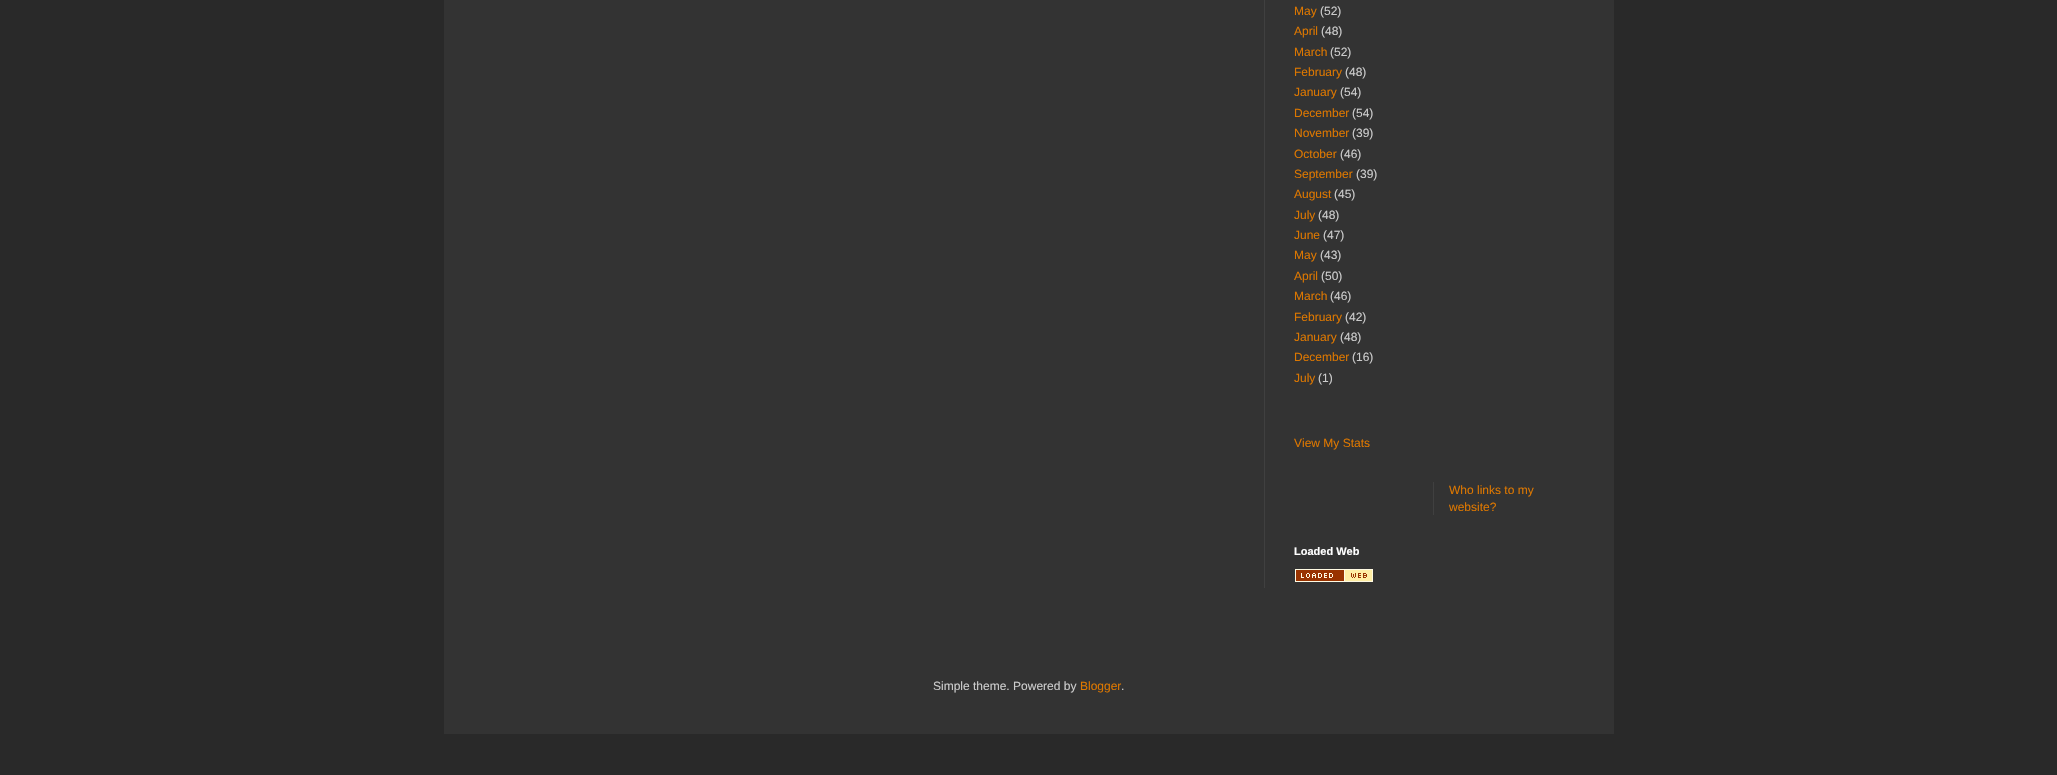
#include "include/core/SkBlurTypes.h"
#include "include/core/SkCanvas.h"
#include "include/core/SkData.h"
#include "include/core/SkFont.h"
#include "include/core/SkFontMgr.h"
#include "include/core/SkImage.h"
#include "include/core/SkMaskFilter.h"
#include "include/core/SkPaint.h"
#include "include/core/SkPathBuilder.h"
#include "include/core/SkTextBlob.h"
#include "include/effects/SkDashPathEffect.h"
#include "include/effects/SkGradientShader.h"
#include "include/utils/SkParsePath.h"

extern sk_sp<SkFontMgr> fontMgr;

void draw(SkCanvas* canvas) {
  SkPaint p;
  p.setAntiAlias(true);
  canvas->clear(SkColorSetRGB(41, 41, 41));
  p.setColor(SkColorSetRGB(51, 51, 51));
  canvas->drawRect(SkRect::MakeLTRB(444, 0, 1614, 734), p);
  p.setColor(SkColorSetRGB(64, 64, 64));
  canvas->drawRect(SkRect::MakeLTRB(1264, 0, 1265, 588), p);
  canvas->drawRect(SkRect::MakeLTRB(1433, 482, 1434, 515), p);
  canvas->drawImageRect(SkImages::DeferredFromEncodedData(SkData::MakeFromFileName("images/1.png")), SkRect::MakeLTRB(1295, 569, 1373, 582), SkSamplingOptions());
  SkFont font1(fontMgr->matchFamilyStyle("Liberation Sans", SkFontStyle::Normal()), 12);
  font1.setSubpixel(true);
  p.setColor(SkColorSetRGB(221, 119, 0));
  canvas->drawString("May", 1294, 15, font1, p);
  p.setColor(SkColorSetRGB(204, 204, 204));
  canvas->drawString("(52)", 1320, 15, font1, p);
  p.setColor(SkColorSetRGB(221, 119, 0));
  canvas->drawString("April", 1294, 35, font1, p);
  p.setColor(SkColorSetRGB(204, 204, 204));
  canvas->drawString("(48)", 1321, 35, font1, p);
  p.setColor(SkColorSetRGB(221, 119, 0));
  canvas->drawString("March", 1294, 56, font1, p);
  p.setColor(SkColorSetRGB(204, 204, 204));
  canvas->drawString("(52)", 1330, 56, font1, p);
  p.setColor(SkColorSetRGB(221, 119, 0));
  canvas->drawString("February", 1294, 76, font1, p);
  p.setColor(SkColorSetRGB(204, 204, 204));
  canvas->drawString("(48)", 1345, 76, font1, p);
  p.setColor(SkColorSetRGB(221, 119, 0));
  canvas->drawString("January", 1294, 96, font1, p);
  p.setColor(SkColorSetRGB(204, 204, 204));
  canvas->drawString("(54)", 1340, 96, font1, p);
  p.setColor(SkColorSetRGB(221, 119, 0));
  canvas->drawString("December", 1294, 117, font1, p);
  p.setColor(SkColorSetRGB(204, 204, 204));
  canvas->drawString("(54)", 1352, 117, font1, p);
  p.setColor(SkColorSetRGB(221, 119, 0));
  canvas->drawString("November", 1294, 137, font1, p);
  p.setColor(SkColorSetRGB(204, 204, 204));
  canvas->drawString("(39)", 1352, 137, font1, p);
  p.setColor(SkColorSetRGB(221, 119, 0));
  canvas->drawString("October", 1294, 158, font1, p);
  p.setColor(SkColorSetRGB(204, 204, 204));
  canvas->drawString("(46)", 1340, 158, font1, p);
  p.setColor(SkColorSetRGB(221, 119, 0));
  canvas->drawString("September", 1294, 178, font1, p);
  p.setColor(SkColorSetRGB(204, 204, 204));
  canvas->drawString("(39)", 1356, 178, font1, p);
  p.setColor(SkColorSetRGB(221, 119, 0));
  canvas->drawString("August", 1294, 198, font1, p);
  p.setColor(SkColorSetRGB(204, 204, 204));
  canvas->drawString("(45)", 1334, 198, font1, p);
  p.setColor(SkColorSetRGB(221, 119, 0));
  canvas->drawString("July", 1294, 219, font1, p);
  p.setColor(SkColorSetRGB(204, 204, 204));
  canvas->drawString("(48)", 1318, 219, font1, p);
  p.setColor(SkColorSetRGB(221, 119, 0));
  canvas->drawString("June", 1294, 239, font1, p);
  p.setColor(SkColorSetRGB(204, 204, 204));
  canvas->drawString("(47)", 1323, 239, font1, p);
  p.setColor(SkColorSetRGB(221, 119, 0));
  canvas->drawString("May", 1294, 259, font1, p);
  p.setColor(SkColorSetRGB(204, 204, 204));
  canvas->drawString("(43)", 1320, 259, font1, p);
  p.setColor(SkColorSetRGB(221, 119, 0));
  canvas->drawString("April", 1294, 280, font1, p);
  p.setColor(SkColorSetRGB(204, 204, 204));
  canvas->drawString("(50)", 1321, 280, font1, p);
  p.setColor(SkColorSetRGB(221, 119, 0));
  canvas->drawString("March", 1294, 300, font1, p);
  p.setColor(SkColorSetRGB(204, 204, 204));
  canvas->drawString("(46)", 1330, 300, font1, p);
  p.setColor(SkColorSetRGB(221, 119, 0));
  canvas->drawString("February", 1294, 321, font1, p);
  p.setColor(SkColorSetRGB(204, 204, 204));
  canvas->drawString("(42)", 1345, 321, font1, p);
  p.setColor(SkColorSetRGB(221, 119, 0));
  canvas->drawString("January", 1294, 341, font1, p);
  p.setColor(SkColorSetRGB(204, 204, 204));
  canvas->drawString("(48)", 1340, 341, font1, p);
  p.setColor(SkColorSetRGB(221, 119, 0));
  canvas->drawString("December", 1294, 361, font1, p);
  p.setColor(SkColorSetRGB(204, 204, 204));
  canvas->drawString("(16)", 1352, 361, font1, p);
  p.setColor(SkColorSetRGB(221, 119, 0));
  canvas->drawString("July", 1294, 382, font1, p);
  p.setColor(SkColorSetRGB(204, 204, 204));
  canvas->drawString("(1)", 1318, 382, font1, p);
  p.setColor(SkColorSetRGB(221, 119, 0));
  canvas->drawString("View My Stats", 1294, 447, font1, p);
  canvas->drawString("Who links to my", 1449, 494, font1, p);
  canvas->drawString("website?", 1449, 511, font1, p);
  SkFont font2(fontMgr->matchFamilyStyle("Liberation Sans", SkFontStyle::Bold()), 11);
  font2.setSubpixel(true);
  p.setColor(SK_ColorWHITE);
  canvas->drawString("Loaded Web", 1294, 555, font2, p);
  p.setColor(SkColorSetRGB(204, 204, 204));
  canvas->drawString("Simple theme. Powered by", 933, 690, font1, p);
  p.setColor(SkColorSetRGB(221, 119, 0));
  canvas->drawString("Blogger", 1080, 690, font1, p);
  p.setColor(SkColorSetRGB(204, 204, 204));
  canvas->drawString(".", 1121, 690, font1, p);
}
